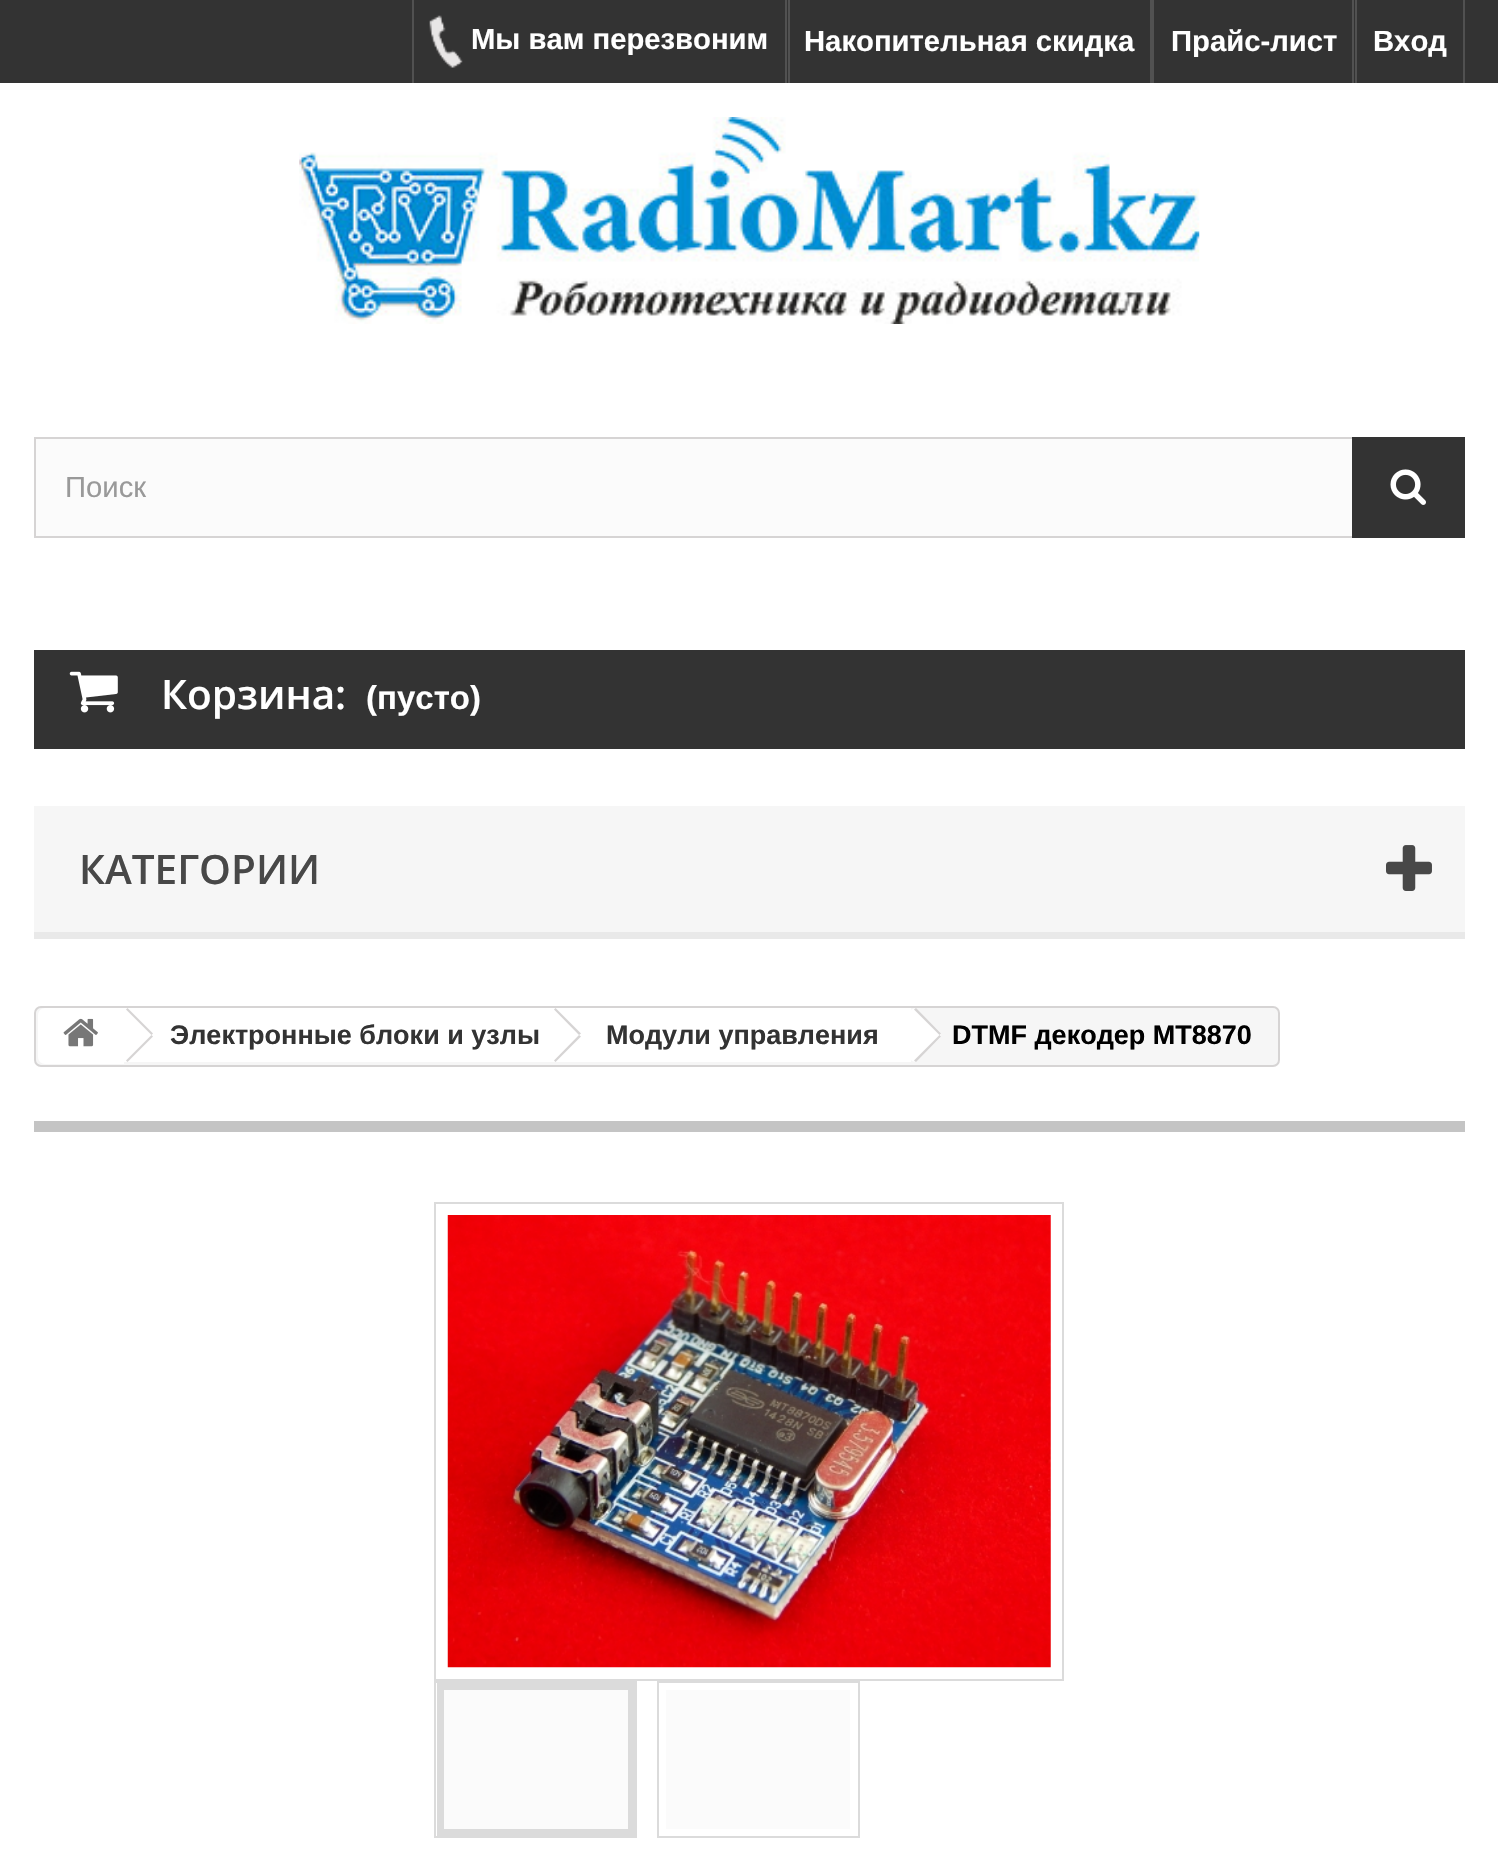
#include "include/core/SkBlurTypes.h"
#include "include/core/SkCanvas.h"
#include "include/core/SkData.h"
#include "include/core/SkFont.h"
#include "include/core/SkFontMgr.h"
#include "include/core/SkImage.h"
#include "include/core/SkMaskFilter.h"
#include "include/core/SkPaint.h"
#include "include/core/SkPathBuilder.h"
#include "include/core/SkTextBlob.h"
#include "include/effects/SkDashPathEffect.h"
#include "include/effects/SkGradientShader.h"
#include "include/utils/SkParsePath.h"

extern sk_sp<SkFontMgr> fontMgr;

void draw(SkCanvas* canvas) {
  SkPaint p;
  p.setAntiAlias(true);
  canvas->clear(SK_ColorWHITE);
  p.setColor(SkColorSetRGB(51, 51, 51));
  canvas->drawRect(SkRect::MakeLTRB(0, 0, 1498, 83), p);
  p.setColor(SkColorSetRGB(81, 81, 81));
  canvas->drawRect(SkRect::MakeLTRB(785, 0, 787, 83), p);
  canvas->drawRect(SkRect::MakeLTRB(412, 0, 414, 83), p);
  canvas->drawImageRect(SkImages::DeferredFromEncodedData(SkData::MakeFromFileName("images/1.png")), SkRect::MakeLTRB(429, 15, 463, 68), SkSamplingOptions());
  canvas->drawRect(SkRect::MakeLTRB(788, 0, 790, 83), p);
  canvas->drawRect(SkRect::MakeLTRB(1352, 0, 1354, 83), p);
  canvas->drawRect(SkRect::MakeLTRB(1150, 0, 1154, 83), p);
  canvas->drawRect(SkRect::MakeLTRB(1463, 0, 1465, 83), p);
  canvas->drawRect(SkRect::MakeLTRB(1355, 0, 1357, 83), p);
  canvas->drawImageRect(SkImages::DeferredFromEncodedData(SkData::MakeFromFileName("images/2.png")), SkRect::MakeLTRB(299, 117, 1200, 324), SkSamplingOptions());
  p.setColor(SkColorSetRGB(251, 251, 251));
  canvas->drawRect(SkRect::MakeLTRB(36, 439, 1352, 536), p);
  p.setStyle(SkPaint::kStroke_Style);
  p.setStrokeWidth(2);
  p.setColor(SkColorSetRGB(214, 212, 212));
  canvas->drawRect(SkRect::MakeLTRB(35, 438, 1464, 537), p);
  p.setStyle(SkPaint::kFill_Style);
  p.setColor(SkColorSetRGB(51, 51, 51));
  canvas->drawRect(SkRect::MakeLTRB(1352, 437, 1465, 538), p);
  canvas->drawImageRect(SkImages::DeferredFromEncodedData(SkData::MakeFromFileName("images/3.png")), SkRect::MakeLTRB(1390, 469, 1426, 505), SkSamplingOptions());
  canvas->drawRect(SkRect::MakeLTRB(34, 650, 1465, 749), p);
  canvas->drawImageRect(SkImages::DeferredFromEncodedData(SkData::MakeFromFileName("images/4.png")), SkRect::MakeLTRB(69, 671, 118, 713), SkSamplingOptions());
  p.setColor(SkColorSetRGB(246, 246, 246));
  canvas->drawRect(SkRect::MakeLTRB(34, 806, 1465, 932), p);
  p.setColor(SkColorSetRGB(233, 233, 233));
  canvas->drawRect(SkRect::MakeLTRB(34, 932, 1465, 939), p);
  canvas->drawImageRect(SkImages::DeferredFromEncodedData(SkData::MakeFromFileName("images/5.png")), SkRect::MakeLTRB(1386, 845, 1432, 891), SkSamplingOptions());
  p.setColor(SkColorSetRGB(246, 246, 246));
  canvas->drawRoundRect(SkRect::MakeLTRB(35, 1007, 1279, 1066), 6, 6, p);
  p.setStyle(SkPaint::kStroke_Style);
  p.setColor(SkColorSetRGB(214, 212, 212));
  canvas->drawRoundRect(SkRect::MakeLTRB(35, 1007, 1279, 1066), 6, 6, p);
  p.setStyle(SkPaint::kFill_Style);
  p.setColor(SK_ColorWHITE);
  canvas->drawPath(SkPathBuilder().moveTo(45, 1008).lineTo(124, 1008).lineTo(124, 1064).lineTo(45, 1064).cubicTo(41, 1064, 38, 1061, 38, 1057).lineTo(38, 1015).cubicTo(38, 1011, 41, 1008, 45, 1008).close().detach(), p);
  canvas->drawImageRect(SkImages::DeferredFromEncodedData(SkData::MakeFromFileName("images/6.png")), SkRect::MakeLTRB(63, 1018, 98, 1047), SkSamplingOptions());
  canvas->drawRect(SkRect::MakeLTRB(124, 1008, 556, 1062), p);
  p.setColor(SkColorSetRGB(214, 212, 212));
  canvas->drawPath(SkPathBuilder().moveTo(127.5f, 1008).lineTo(153, 1033.5f).lineTo(151.5f, 1035).lineTo(126, 1009.5f).close().moveTo(151.5f, 1035).lineTo(153, 1036.5f).lineTo(127.5f, 1062).lineTo(126, 1060.5f).close().detach(), p);
  p.setColor(SK_ColorWHITE);
  canvas->drawPath(SkPathBuilder().moveTo(579, 1010).lineTo(602, 1032).cubicTo(603, 1034, 603, 1036, 602, 1038).lineTo(579, 1060).cubicTo(578, 1062, 575, 1062, 573, 1060).lineTo(551, 1038).cubicTo(549, 1036, 549, 1034, 551, 1032).lineTo(573, 1010).cubicTo(575, 1008, 578, 1008, 579, 1010).close().detach(), p);
  canvas->drawRect(SkRect::MakeLTRB(556, 1008, 911, 1062), p);
  p.setColor(SkColorSetRGB(214, 212, 212));
  canvas->drawPath(SkPathBuilder().moveTo(555.5f, 1008).lineTo(581, 1033.5f).lineTo(579, 1035).lineTo(554, 1009.5f).close().moveTo(579, 1035).lineTo(581, 1036.5f).lineTo(555.5f, 1062).lineTo(554, 1060.5f).close().detach(), p);
  p.setColor(SK_ColorWHITE);
  canvas->drawPath(SkPathBuilder().moveTo(917, 1010).lineTo(940, 1032).cubicTo(941, 1034, 941, 1036, 940, 1038).lineTo(917, 1060).cubicTo(916, 1062, 913, 1062, 911, 1060).lineTo(889, 1038).cubicTo(887, 1036, 887, 1034, 889, 1032).lineTo(911, 1010).cubicTo(913, 1008, 916, 1008, 917, 1010).close().detach(), p);
  p.setColor(SkColorSetRGB(214, 212, 212));
  canvas->drawPath(SkPathBuilder().moveTo(916, 1008).lineTo(941, 1033.5f).lineTo(939.5f, 1035).lineTo(914, 1009.5f).close().moveTo(939.5f, 1035).lineTo(941, 1036.5f).lineTo(916, 1062).lineTo(914, 1060.5f).close().detach(), p);
  p.setColor(SkColorSetRGB(196, 196, 196));
  canvas->drawRect(SkRect::MakeLTRB(34, 1121, 1465, 1132), p);
  p.setStyle(SkPaint::kStroke_Style);
  p.setColor(SkColorSetRGB(219, 219, 219));
  canvas->drawRect(SkRect::MakeLTRB(435, 1203, 1063, 1680), p);
  canvas->drawImageRect(SkImages::DeferredFromEncodedData(SkData::MakeFromFileName("images/7.png")), SkRect::MakeLTRB(447, 1215, 1051, 1668), SkSamplingOptions());
  canvas->drawRect(SkRect::MakeLTRB(435, 1682, 636, 1837), p);
  p.setStyle(SkPaint::kFill_Style);
  p.setColor(SkColorSetRGB(251, 251, 251));
  canvas->drawRect(SkRect::MakeLTRB(440.5f, 1686.5f, 631.5f, 1832.5f), p);
  p.setStyle(SkPaint::kStroke_Style);
  p.setStrokeWidth(7);
  p.setColor(SkColorSetRGB(219, 219, 219));
  canvas->drawRect(SkRect::MakeLTRB(440.5f, 1686.5f, 631.5f, 1832.5f), p);
  p.setStrokeWidth(2);
  canvas->drawRect(SkRect::MakeLTRB(658, 1682, 859, 1837), p);
  p.setStyle(SkPaint::kFill_Style);
  p.setColor(SkColorSetRGB(251, 251, 251));
  canvas->drawRect(SkRect::MakeLTRB(666, 1690, 850, 1829), p);
  SkFont font1(fontMgr->matchFamilyStyle("Liberation Sans", SkFontStyle::Bold()), 29.25f);
  font1.setSubpixel(true);
  p.setColor(SK_ColorWHITE);
  canvas->drawString("Мы вам перезвоним", 471, 49, font1, p);
  canvas->drawString("Накопительная скидка", 804, 51, font1, p);
  canvas->drawString("Прайс-лист", 1171, 51, font1, p);
  canvas->drawString("Вход", 1373, 51, font1, p);
  SkFont font2(fontMgr->matchFamilyStyle("Liberation Sans", SkFontStyle::Normal()), 29.25f);
  font2.setSubpixel(true);
  p.setColor(SkColorSetRGB(153, 153, 153));
  canvas->drawString("Поиск", 65, 497, font2, p);
  SkFont font3(fontMgr->matchFamilyStyle("Open Sans", SkFontStyle(600, SkFontStyle::kNormal_Width, SkFontStyle::kUpright_Slant)), 40.5f);
  font3.setSubpixel(true);
  p.setColor(SK_ColorWHITE);
  canvas->drawString("Корзина:", 161, 709, font3, p);
  SkFont font4(fontMgr->matchFamilyStyle("Liberation Sans", SkFontStyle::Bold()), 33);
  font4.setSubpixel(true);
  canvas->drawString("(пусто)", 366, 709, font4, p);
  p.setColor(SkColorSetRGB(72, 72, 72));
  canvas->drawString("КАТЕГОРИИ", 79, 884, font3, p);
  SkFont font5(fontMgr->matchFamilyStyle("Liberation Sans", SkFontStyle::Bold()), 27);
  font5.setSubpixel(true);
  p.setColor(SkColorSetRGB(51, 51, 51));
  canvas->drawString("Электронные блоки и узлы", 170, 1044, font5, p);
  canvas->drawString("Модули управления", 606, 1044, font5, p);
  p.setColor(SK_ColorBLACK);
  canvas->drawString("DTMF декодер MT8870", 952, 1044, font5, p);
}
